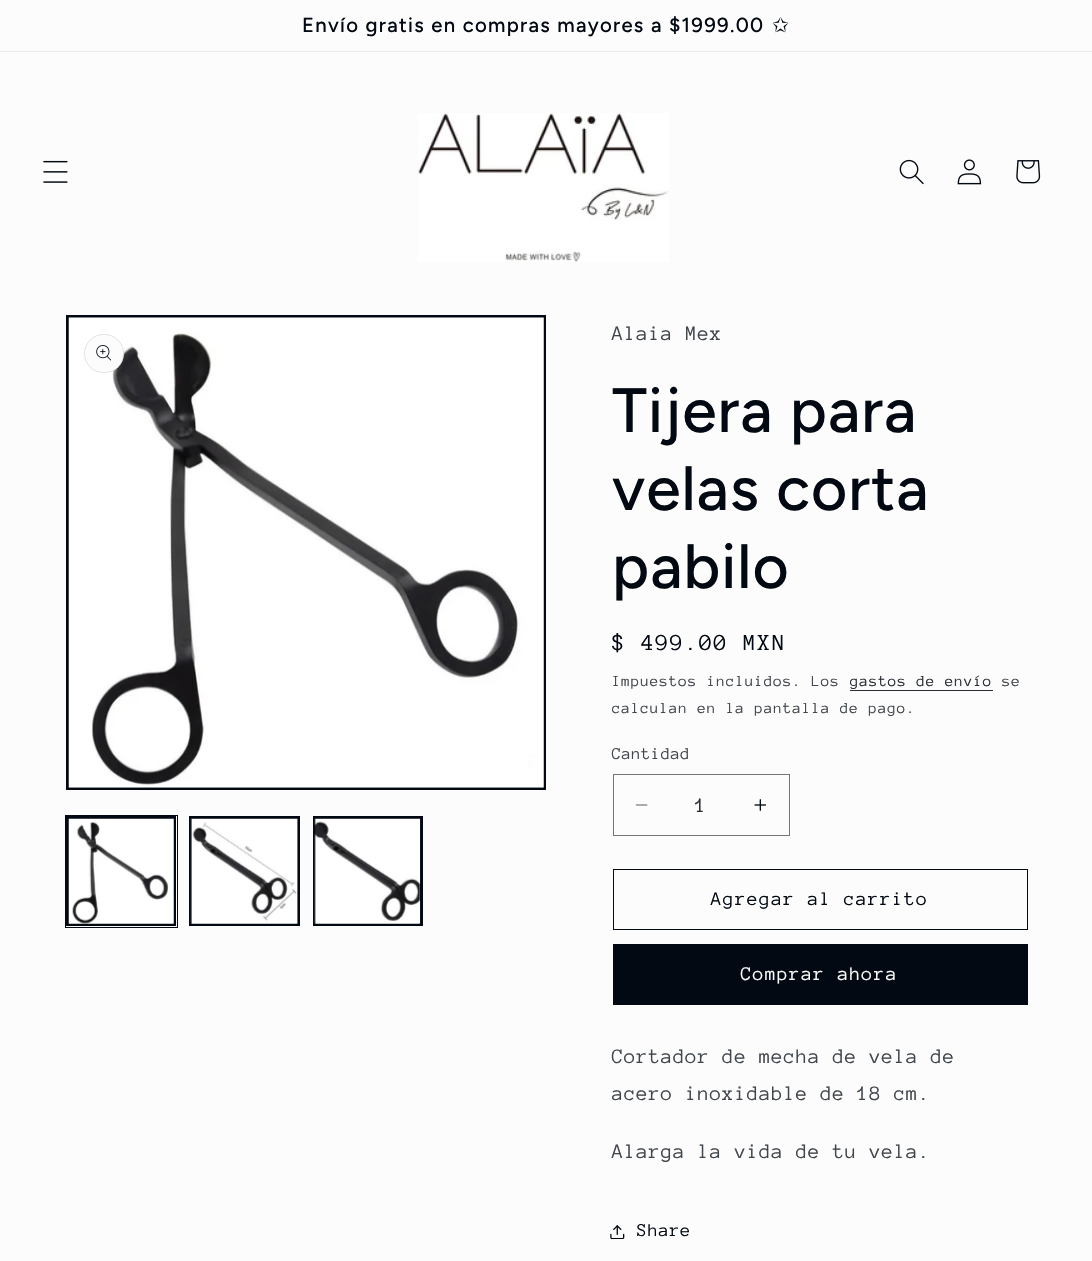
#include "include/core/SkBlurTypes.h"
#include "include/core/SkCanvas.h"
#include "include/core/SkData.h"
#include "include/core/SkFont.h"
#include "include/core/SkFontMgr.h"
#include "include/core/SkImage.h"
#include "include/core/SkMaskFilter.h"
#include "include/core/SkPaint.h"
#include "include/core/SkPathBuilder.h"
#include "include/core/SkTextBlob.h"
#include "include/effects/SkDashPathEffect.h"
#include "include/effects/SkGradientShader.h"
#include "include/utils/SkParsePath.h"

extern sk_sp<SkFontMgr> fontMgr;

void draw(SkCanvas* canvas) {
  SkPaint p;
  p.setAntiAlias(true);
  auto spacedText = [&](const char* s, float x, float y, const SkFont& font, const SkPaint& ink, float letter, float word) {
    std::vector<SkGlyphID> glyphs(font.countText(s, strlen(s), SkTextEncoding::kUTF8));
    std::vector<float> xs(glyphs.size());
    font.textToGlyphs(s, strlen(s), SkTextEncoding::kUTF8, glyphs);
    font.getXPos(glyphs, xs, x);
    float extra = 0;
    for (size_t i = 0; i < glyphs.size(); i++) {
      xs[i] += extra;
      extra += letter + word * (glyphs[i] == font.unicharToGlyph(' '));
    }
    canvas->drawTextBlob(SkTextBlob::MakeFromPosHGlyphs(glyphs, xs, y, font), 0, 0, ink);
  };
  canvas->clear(SkColorSetRGB(252, 252, 252));
  p.setColor(SkColorSetRGB(232, 233, 233));
  canvas->drawRect(SkRect::MakeLTRB(0, 51, 1092, 52), p);
  canvas->drawImageRect(SkImages::DeferredFromEncodedData(SkData::MakeFromFileName("images/1.png")), SkRect::MakeLTRB(43, 160, 68, 183), SkSamplingOptions());
  canvas->drawImageRect(SkImages::DeferredFromEncodedData(SkData::MakeFromFileName("images/2.png")), SkRect::MakeLTRB(418, 113, 669, 262), SkSamplingOptions());
  canvas->drawImageRect(SkImages::DeferredFromEncodedData(SkData::MakeFromFileName("images/3.png")), SkRect::MakeLTRB(899, 159, 924, 185), SkSamplingOptions());
  canvas->drawImageRect(SkImages::DeferredFromEncodedData(SkData::MakeFromFileName("images/4.png")), SkRect::MakeLTRB(957, 159, 982, 185), SkSamplingOptions());
  canvas->drawImageRect(SkImages::DeferredFromEncodedData(SkData::MakeFromFileName("images/5.png")), SkRect::MakeLTRB(1016, 160, 1041, 184), SkSamplingOptions());
  p.setStyle(SkPaint::kStroke_Style);
  p.setStrokeWidth(3);
  p.setColor(SkColorSetRGB(2, 9, 18));
  canvas->drawRect(SkRect::MakeLTRB(67.5f, 316.5f, 544.5f, 788.5f), p);
  canvas->drawImageRect(SkImages::DeferredFromEncodedData(SkData::MakeFromFileName("images/6.png")), SkRect::MakeLTRB(68, 317, 544, 788), SkSamplingOptions());
  p.setStyle(SkPaint::kFill_Style);
  p.setColor(SkColorSetRGB(252, 252, 252));
  canvas->drawRoundRect(SkRect::MakeLTRB(84, 334, 124, 373), 19.5f, 19.5f, p);
  p.setStyle(SkPaint::kStroke_Style);
  p.setStrokeWidth(1);
  p.setColor(SkColorSetARGB(26, 2, 9, 18));
  canvas->drawRoundRect(SkRect::MakeLTRB(84.5f, 334.5f, 123.5f, 372.5f), 19, 19, p);
  canvas->drawImageRect(SkImages::DeferredFromEncodedData(SkData::MakeFromFileName("images/7.png")), SkRect::MakeLTRB(96, 345, 111, 361), SkSamplingOptions());
  p.setColor(SkColorSetRGB(2, 9, 18));
  canvas->drawRect(SkRect::MakeLTRB(65.5f, 815.5f, 177.5f, 927.5f), p);
  p.setStrokeWidth(3);
  canvas->drawRect(SkRect::MakeLTRB(67.5f, 817.5f, 174.5f, 924.5f), p);
  canvas->drawImageRect(SkImages::DeferredFromEncodedData(SkData::MakeFromFileName("images/8.png")), SkRect::MakeLTRB(68, 818, 174, 924), SkSamplingOptions());
  canvas->drawRect(SkRect::MakeLTRB(190.5f, 817.5f, 298.5f, 924.5f), p);
  canvas->drawImageRect(SkImages::DeferredFromEncodedData(SkData::MakeFromFileName("images/9.png")), SkRect::MakeLTRB(190, 818, 298, 924), SkSamplingOptions());
  canvas->drawRect(SkRect::MakeLTRB(314.5f, 817.5f, 421.5f, 924.5f), p);
  canvas->drawImageRect(SkImages::DeferredFromEncodedData(SkData::MakeFromFileName("images/10.png")), SkRect::MakeLTRB(314, 818, 421, 924), SkSamplingOptions());
  p.setStyle(SkPaint::kFill_Style);
  p.setColor(SkColorSetRGB(40, 45, 53));
  canvas->drawRect(SkRect::MakeLTRB(850, 690, 993, 691), p);
  canvas->drawImageRect(SkImages::DeferredFromEncodedData(SkData::MakeFromFileName("images/11.png")), SkRect::MakeLTRB(635, 804, 648, 806), SkSamplingOptions());
  canvas->drawImageRect(SkImages::DeferredFromEncodedData(SkData::MakeFromFileName("images/12.png")), SkRect::MakeLTRB(754, 799, 766, 811), SkSamplingOptions());
  p.setStyle(SkPaint::kStroke_Style);
  p.setStrokeWidth(1);
  p.setColor(SkColorSetRGB(114, 118, 123));
  canvas->drawRect(SkRect::MakeLTRB(613.5f, 774.5f, 789.5f, 835.5f), p);
  p.setColor(SkColorSetRGB(2, 9, 18));
  canvas->drawRect(SkRect::MakeLTRB(613.5f, 869.5f, 1027.5f, 929.5f), p);
  p.setStyle(SkPaint::kFill_Style);
  canvas->drawRect(SkRect::MakeLTRB(613, 944, 1028, 1005), p);
  canvas->drawImageRect(SkImages::DeferredFromEncodedData(SkData::MakeFromFileName("images/13.png")), SkRect::MakeLTRB(610, 1225, 625, 1239), SkSamplingOptions());
  SkFont font1(fontMgr->matchFamilyStyle("Figtree", SkFontStyle(500, SkFontStyle::kNormal_Width, SkFontStyle::kUpright_Slant)), 20.3f);
  font1.setSubpixel(true);
  spacedText("Envío gratis en compras mayores a $1999.00", 302, 32, font1, p, 1.3f, 0);
  SkFont font2(fontMgr->matchFamilyStyle("DejaVu Sans", SkFontStyle::Normal()), 20.3f);
  font2.setSubpixel(true);
  spacedText("✩", 772, 32, font2, p, 1.3f, 0);
  SkFont font3(fontMgr->matchFamilyStyle("Anonymous Pro", SkFontStyle::Normal()), 21);
  font3.setSubpixel(true);
  p.setColor(SkColorSetRGB(65, 70, 77));
  spacedText("Alaia Mex", 612, 340, font3, p, 0.8f, 0);
  SkFont font4(fontMgr->matchFamilyStyle("Figtree", SkFontStyle(500, SkFontStyle::kNormal_Width, SkFontStyle::kUpright_Slant)), 62.5f);
  font4.setSubpixel(true);
  p.setColor(SkColorSetRGB(2, 9, 18));
  spacedText("Tijera para", 612, 432, font4, p, 1, 0);
  spacedText("velas corta", 612, 510, font4, p, 1, 0);
  spacedText("pabilo", 612, 588, font4, p, 1, 0);
  SkFont font5(fontMgr->matchFamilyStyle("Anonymous Pro", SkFontStyle::Normal()), 23.5f);
  font5.setSubpixel(true);
  spacedText("$ 499.00 MXN", 612, 650, font5, p, 1.75f, 0);
  SkFont font6(fontMgr->matchFamilyStyle("Anonymous Pro", SkFontStyle::Normal()), 15.75f);
  font6.setSubpixel(true);
  p.setColor(SkColorSetRGB(65, 70, 77));
  spacedText("Impuestos incluidos. Los", 612, 686, font6, p, 0.9f, 0);
  p.setColor(SkColorSetRGB(40, 45, 53));
  spacedText("gastos de envío", 850, 686, font6, p, 0.9f, 0);
  p.setColor(SkColorSetRGB(65, 70, 77));
  spacedText("se", 1002, 686, font6, p, 0.9f, 0);
  spacedText("calculan en la pantalla de pago.", 612, 713, font6, p, 0.9f, 0);
  SkFont font7(fontMgr->matchFamilyStyle("Anonymous Pro", SkFontStyle::Normal()), 17);
  font7.setSubpixel(true);
  spacedText("Cantidad", 612, 759, font7, p, 0.5f, 0);
  p.setColor(SkColorSetRGB(40, 45, 53));
  canvas->drawString("1", 695, 812, font3, p);
  SkFont font8(fontMgr->matchFamilyStyle("Anonymous Pro", SkFontStyle::Normal()), 19.75f);
  font8.setSubpixel(true);
  p.setColor(SkColorSetRGB(2, 9, 18));
  spacedText("Agregar al carrito", 711, 905, font8, p, 1.3f, 0);
  p.setColor(SkColorSetRGB(252, 252, 252));
  spacedText("Comprar ahora", 741, 980, font8, p, 1.3f, 0);
  p.setColor(SkColorSetRGB(65, 70, 77));
  spacedText("Cortador de mecha de vela de", 612, 1063, font3, p, 0.8f, 0);
  spacedText("acero inoxidable de 18 cm.", 612, 1100, font3, p, 0.8f, 0);
  spacedText("Alarga la vida de tu vela.", 612, 1158, font3, p, 0.8f, 0);
  SkFont font9(fontMgr->matchFamilyStyle("Anonymous Pro", SkFontStyle::Normal()), 18.5f);
  font9.setSubpixel(true);
  p.setColor(SkColorSetRGB(2, 9, 18));
  spacedText("Share", 637, 1236, font9, p, 0.8f, 0);
}
